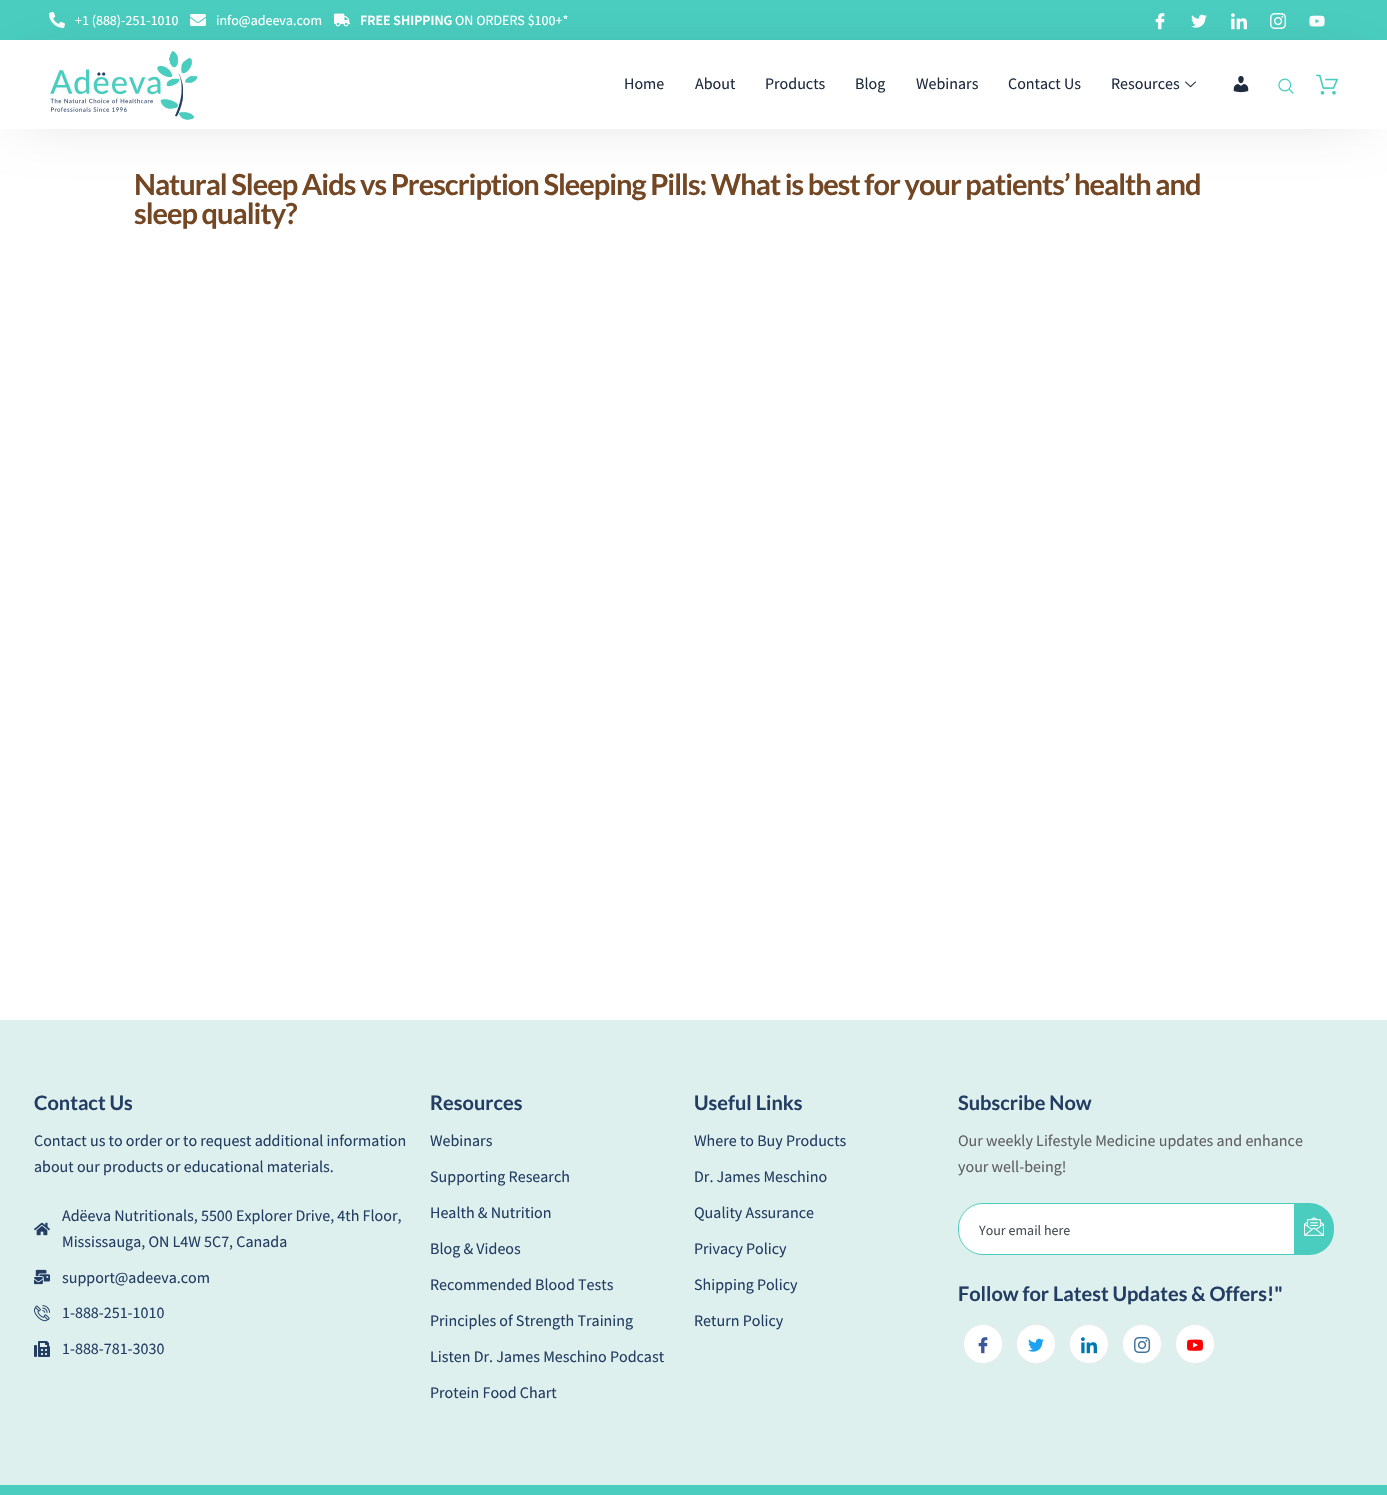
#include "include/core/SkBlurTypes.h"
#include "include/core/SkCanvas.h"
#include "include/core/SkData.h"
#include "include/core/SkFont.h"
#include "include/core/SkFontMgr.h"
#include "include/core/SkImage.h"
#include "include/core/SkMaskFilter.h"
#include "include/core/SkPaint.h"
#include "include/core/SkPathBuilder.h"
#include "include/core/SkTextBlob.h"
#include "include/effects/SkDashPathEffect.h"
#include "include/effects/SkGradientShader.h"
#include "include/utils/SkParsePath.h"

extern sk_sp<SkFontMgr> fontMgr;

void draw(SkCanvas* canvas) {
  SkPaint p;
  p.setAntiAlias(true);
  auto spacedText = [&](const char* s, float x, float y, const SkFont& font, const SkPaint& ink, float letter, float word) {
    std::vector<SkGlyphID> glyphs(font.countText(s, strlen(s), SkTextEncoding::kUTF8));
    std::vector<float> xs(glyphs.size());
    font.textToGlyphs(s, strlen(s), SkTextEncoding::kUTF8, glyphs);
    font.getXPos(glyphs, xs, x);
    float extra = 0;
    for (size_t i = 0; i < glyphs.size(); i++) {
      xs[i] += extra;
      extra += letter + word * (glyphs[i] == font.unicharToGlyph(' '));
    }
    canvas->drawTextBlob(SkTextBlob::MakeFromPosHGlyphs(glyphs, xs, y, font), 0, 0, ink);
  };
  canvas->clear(SK_ColorWHITE);
  p.setColor(SkColorSetRGB(74, 205, 191));
  canvas->drawRect(SkRect::MakeLTRB(0, 0, 1387, 40), p);
  canvas->drawImageRect(SkImages::DeferredFromEncodedData(SkData::MakeFromFileName("images/1.png")), SkRect::MakeLTRB(49, 12, 65, 28), SkSamplingOptions());
  canvas->drawImageRect(SkImages::DeferredFromEncodedData(SkData::MakeFromFileName("images/2.png")), SkRect::MakeLTRB(190, 14, 206, 26), SkSamplingOptions());
  canvas->drawImageRect(SkImages::DeferredFromEncodedData(SkData::MakeFromFileName("images/3.png")), SkRect::MakeLTRB(334, 13, 350, 27), SkSamplingOptions());
  canvas->drawImageRect(SkImages::DeferredFromEncodedData(SkData::MakeFromFileName("images/4.png")), SkRect::MakeLTRB(1155, 13, 1165, 30), SkSamplingOptions());
  canvas->drawImageRect(SkImages::DeferredFromEncodedData(SkData::MakeFromFileName("images/5.png")), SkRect::MakeLTRB(1191, 14, 1207, 28), SkSamplingOptions());
  canvas->drawImageRect(SkImages::DeferredFromEncodedData(SkData::MakeFromFileName("images/6.png")), SkRect::MakeLTRB(1231, 13, 1247, 30), SkSamplingOptions());
  canvas->drawImageRect(SkImages::DeferredFromEncodedData(SkData::MakeFromFileName("images/7.png")), SkRect::MakeLTRB(1270, 13, 1287, 29), SkSamplingOptions());
  canvas->drawImageRect(SkImages::DeferredFromEncodedData(SkData::MakeFromFileName("images/8.png")), SkRect::MakeLTRB(1309, 15, 1325, 27), SkSamplingOptions());
  canvas->save();
  canvas->clipPath(SkPathBuilder(SkPathFillType::kEvenOdd).moveTo(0, 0).lineTo(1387, 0).lineTo(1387, 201).lineTo(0, 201).close().moveTo(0, 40).lineTo(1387, 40).lineTo(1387, 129).lineTo(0, 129).close().detach(), true);
  p.setColor(SkColorSetARGB(48, 0, 0, 0));
  p.setMaskFilter(SkMaskFilter::MakeBlur(kNormal_SkBlurStyle, 30));
  canvas->drawRect(SkRect::MakeLTRB(23, 67, 1364, 110), p);
  p.setMaskFilter(nullptr);
  canvas->restore();
  canvas->drawImageRect(SkImages::DeferredFromEncodedData(SkData::MakeFromFileName("images/9.png")), SkRect::MakeLTRB(50, 51, 198, 120), SkSamplingOptions());
  canvas->drawImageRect(SkImages::DeferredFromEncodedData(SkData::MakeFromFileName("images/10.png")), SkRect::MakeLTRB(1185, 81, 1196, 88), SkSamplingOptions());
  canvas->drawImageRect(SkImages::DeferredFromEncodedData(SkData::MakeFromFileName("images/11.png")), SkRect::MakeLTRB(1233, 76, 1249, 93), SkSamplingOptions());
  canvas->drawImageRect(SkImages::DeferredFromEncodedData(SkData::MakeFromFileName("images/12.png")), SkRect::MakeLTRB(1278, 78, 1294, 94), SkSamplingOptions());
  canvas->drawImageRect(SkImages::DeferredFromEncodedData(SkData::MakeFromFileName("images/13.png")), SkRect::MakeLTRB(1316, 74, 1338, 95), SkSamplingOptions());
  p.setColor(SkColorSetRGB(222, 240, 238));
  canvas->drawRect(SkRect::MakeLTRB(0, 1020, 1387, 1485), p);
  canvas->drawImageRect(SkImages::DeferredFromEncodedData(SkData::MakeFromFileName("images/14.png")), SkRect::MakeLTRB(34, 1222, 50, 1236), SkSamplingOptions());
  canvas->drawImageRect(SkImages::DeferredFromEncodedData(SkData::MakeFromFileName("images/15.png")), SkRect::MakeLTRB(34, 1269, 50, 1285), SkSamplingOptions());
  canvas->drawImageRect(SkImages::DeferredFromEncodedData(SkData::MakeFromFileName("images/16.png")), SkRect::MakeLTRB(34, 1305, 50, 1322), SkSamplingOptions());
  canvas->drawImageRect(SkImages::DeferredFromEncodedData(SkData::MakeFromFileName("images/17.png")), SkRect::MakeLTRB(34, 1341, 50, 1357), SkSamplingOptions());
  p.setColor(SK_ColorWHITE);
  canvas->drawPath(SkPathBuilder().moveTo(983, 1203.5f).lineTo(1295.5f, 1203.5f).lineTo(1295.5f, 1254.5f).lineTo(983, 1254.5f).cubicTo(969.5f, 1254.5f, 958.5f, 1243.5f, 958.5f, 1230).lineTo(958.5f, 1228).cubicTo(958.5f, 1214.5f, 969.5f, 1203.5f, 983, 1203.5f).close().detach(), p);
  p.setStyle(SkPaint::kStroke_Style);
  p.setStrokeWidth(1);
  p.setColor(SkColorSetRGB(74, 205, 191));
  canvas->drawPath(SkPathBuilder().moveTo(983, 1203.5f).lineTo(1295.5f, 1203.5f).lineTo(1295.5f, 1254.5f).lineTo(983, 1254.5f).cubicTo(969.5f, 1254.5f, 958.5f, 1243.5f, 958.5f, 1230).lineTo(958.5f, 1228).cubicTo(958.5f, 1214.5f, 969.5f, 1203.5f, 983, 1203.5f).close().detach(), p);
  p.setStyle(SkPaint::kFill_Style);
  canvas->drawPath(SkPathBuilder().moveTo(1294, 1203).lineTo(1309, 1203).cubicTo(1323, 1203, 1334, 1214, 1334, 1228).lineTo(1334, 1230).cubicTo(1334, 1244, 1323, 1255, 1309, 1255).lineTo(1294, 1255).close().detach(), p);
  canvas->drawImageRect(SkImages::DeferredFromEncodedData(SkData::MakeFromFileName("images/18.png")), SkRect::MakeLTRB(1304, 1217, 1324, 1236), SkSamplingOptions());
  p.setColor(SK_ColorWHITE);
  canvas->drawCircle(983, 1344, 19.5f, p);
  p.setStyle(SkPaint::kStroke_Style);
  p.setColor(SkColorSetRGB(234, 235, 241));
  canvas->drawCircle(983, 1344, 19.5f, p);
  canvas->drawImageRect(SkImages::DeferredFromEncodedData(SkData::MakeFromFileName("images/19.png")), SkRect::MakeLTRB(978, 1337, 988, 1354), SkSamplingOptions());
  p.setStyle(SkPaint::kFill_Style);
  p.setColor(SK_ColorWHITE);
  canvas->drawCircle(1036, 1344, 19.5f, p);
  p.setStyle(SkPaint::kStroke_Style);
  p.setColor(SkColorSetRGB(234, 235, 241));
  canvas->drawCircle(1036, 1344, 19.5f, p);
  canvas->drawImageRect(SkImages::DeferredFromEncodedData(SkData::MakeFromFileName("images/20.png")), SkRect::MakeLTRB(1028, 1338, 1044, 1352), SkSamplingOptions());
  p.setStyle(SkPaint::kFill_Style);
  p.setColor(SK_ColorWHITE);
  canvas->drawCircle(1089, 1344, 19.5f, p);
  p.setStyle(SkPaint::kStroke_Style);
  p.setColor(SkColorSetRGB(234, 235, 241));
  canvas->drawCircle(1089, 1344, 19.5f, p);
  canvas->drawImageRect(SkImages::DeferredFromEncodedData(SkData::MakeFromFileName("images/21.png")), SkRect::MakeLTRB(1081, 1337, 1097, 1354), SkSamplingOptions());
  p.setStyle(SkPaint::kFill_Style);
  p.setColor(SK_ColorWHITE);
  canvas->drawCircle(1142, 1344, 19.5f, p);
  p.setStyle(SkPaint::kStroke_Style);
  p.setColor(SkColorSetRGB(234, 235, 241));
  canvas->drawCircle(1142, 1344, 19.5f, p);
  canvas->drawImageRect(SkImages::DeferredFromEncodedData(SkData::MakeFromFileName("images/22.png")), SkRect::MakeLTRB(1134, 1337, 1151, 1353), SkSamplingOptions());
  p.setStyle(SkPaint::kFill_Style);
  p.setColor(SK_ColorWHITE);
  canvas->drawCircle(1195, 1344, 19.5f, p);
  p.setStyle(SkPaint::kStroke_Style);
  p.setColor(SkColorSetRGB(234, 235, 241));
  canvas->drawCircle(1195, 1344, 19.5f, p);
  canvas->drawImageRect(SkImages::DeferredFromEncodedData(SkData::MakeFromFileName("images/23.png")), SkRect::MakeLTRB(1187, 1339, 1203, 1351), SkSamplingOptions());
  p.setStyle(SkPaint::kFill_Style);
  p.setColor(SkColorSetRGB(74, 205, 191));
  canvas->drawRect(SkRect::MakeLTRB(0, 1485, 1387, 1495), p);
  SkFont font1(fontMgr->matchFamilyStyle("Source Sans Pro", SkFontStyle::Normal()), 14);
  font1.setSubpixel(true);
  p.setColor(SK_ColorWHITE);
  canvas->drawString("+1 (888)-251-1010", 75, 25, font1, p);
  canvas->drawString("info@adeeva.com", 216, 25, font1, p);
  SkFont font2(fontMgr->matchFamilyStyle("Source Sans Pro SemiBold", SkFontStyle(600, SkFontStyle::kNormal_Width, SkFontStyle::kUpright_Slant)), 14);
  font2.setSubpixel(true);
  canvas->drawString("FREE SHIPPING", 360, 25, font2, p);
  canvas->drawString("ON ORDERS $100+*", 455, 25, font1, p);
  SkFont font3(fontMgr->matchFamilyStyle("Source Sans Pro", SkFontStyle::Normal()), 16);
  font3.setSubpixel(true);
  p.setColor(SkColorSetRGB(31, 44, 64));
  canvas->drawString("Home", 624, 89, font3, p);
  canvas->drawString("About", 695, 89, font3, p);
  canvas->drawString("Products", 765, 89, font3, p);
  canvas->drawString("Blog", 855, 89, font3, p);
  canvas->drawString("Webinars", 916, 89, font3, p);
  canvas->drawString("Contact Us", 1008, 89, font3, p);
  canvas->drawString("Resources", 1111, 89, font3, p);
  SkFont font4(fontMgr->matchFamilyStyle("Lato", SkFontStyle::Bold()), 29);
  font4.setSubpixel(true);
  p.setColor(SkColorSetRGB(115, 71, 36));
  spacedText("Natural Sleep Aids vs Prescription Sleeping Pills: What is best for your patients’ health and", 134, 195, font4, p, -1, 0);
  spacedText("sleep quality?", 134, 224, font4, p, -1, 0);
  SkFont font5(fontMgr->matchFamilyStyle("Lato", SkFontStyle::Bold()), 20);
  font5.setSubpixel(true);
  p.setColor(SkColorSetRGB(35, 61, 99));
  canvas->drawString("Contact Us", 34, 1110, font5, p);
  canvas->drawString("Contact us to order or to request additional information", 34, 1146, font3, p);
  canvas->drawString("about our products or educational materials.", 34, 1172, font3, p);
  canvas->drawString("Adëeva Nutritionals, 5500 Explorer Drive, 4th Floor,", 62, 1221, font3, p);
  canvas->drawString("Mississauga, ON L4W 5C7, Canada", 62, 1247, font3, p);
  canvas->drawString("support@adeeva.com", 62, 1283, font3, p);
  canvas->drawString("1-888-251-1010", 62, 1318, font3, p);
  canvas->drawString("1-888-781-3030", 62, 1354, font3, p);
  canvas->drawString("Resources", 430, 1110, font5, p);
  canvas->drawString("Webinars", 430, 1146, font3, p);
  canvas->drawString("Supporting Research", 430, 1182, font3, p);
  canvas->drawString("Health & Nutrition", 430, 1218, font3, p);
  canvas->drawString("Blog & Videos", 430, 1254, font3, p);
  canvas->drawString("Recommended Blood Tests", 430, 1290, font3, p);
  canvas->drawString("Principles of Strength Training", 430, 1326, font3, p);
  canvas->drawString("Listen Dr. James Meschino Podcast", 430, 1362, font3, p);
  canvas->drawString("Protein Food Chart", 430, 1398, font3, p);
  canvas->drawString("Useful Links", 694, 1110, font5, p);
  canvas->drawString("Where to Buy Products", 694, 1146, font3, p);
  canvas->drawString("Dr. James Meschino", 694, 1182, font3, p);
  canvas->drawString("Quality Assurance", 694, 1218, font3, p);
  canvas->drawString("Privacy Policy", 694, 1254, font3, p);
  canvas->drawString("Shipping Policy", 694, 1290, font3, p);
  canvas->drawString("Return Policy", 694, 1326, font3, p);
  canvas->drawString("Subscribe Now", 958, 1110, font5, p);
  p.setColor(SkColorSetRGB(96, 96, 96));
  canvas->drawString("Our weekly Lifestyle Medicine updates and enhance", 958, 1146, font3, p);
  canvas->drawString("your well-being!", 958, 1172, font3, p);
  p.setColor(SkColorSetRGB(73, 80, 87));
  canvas->drawString("Your email here", 979, 1235, font1, p);
  p.setColor(SkColorSetRGB(35, 61, 99));
  canvas->drawString("Follow for Latest Updates & Offers!\"", 958, 1301, font5, p);
}
